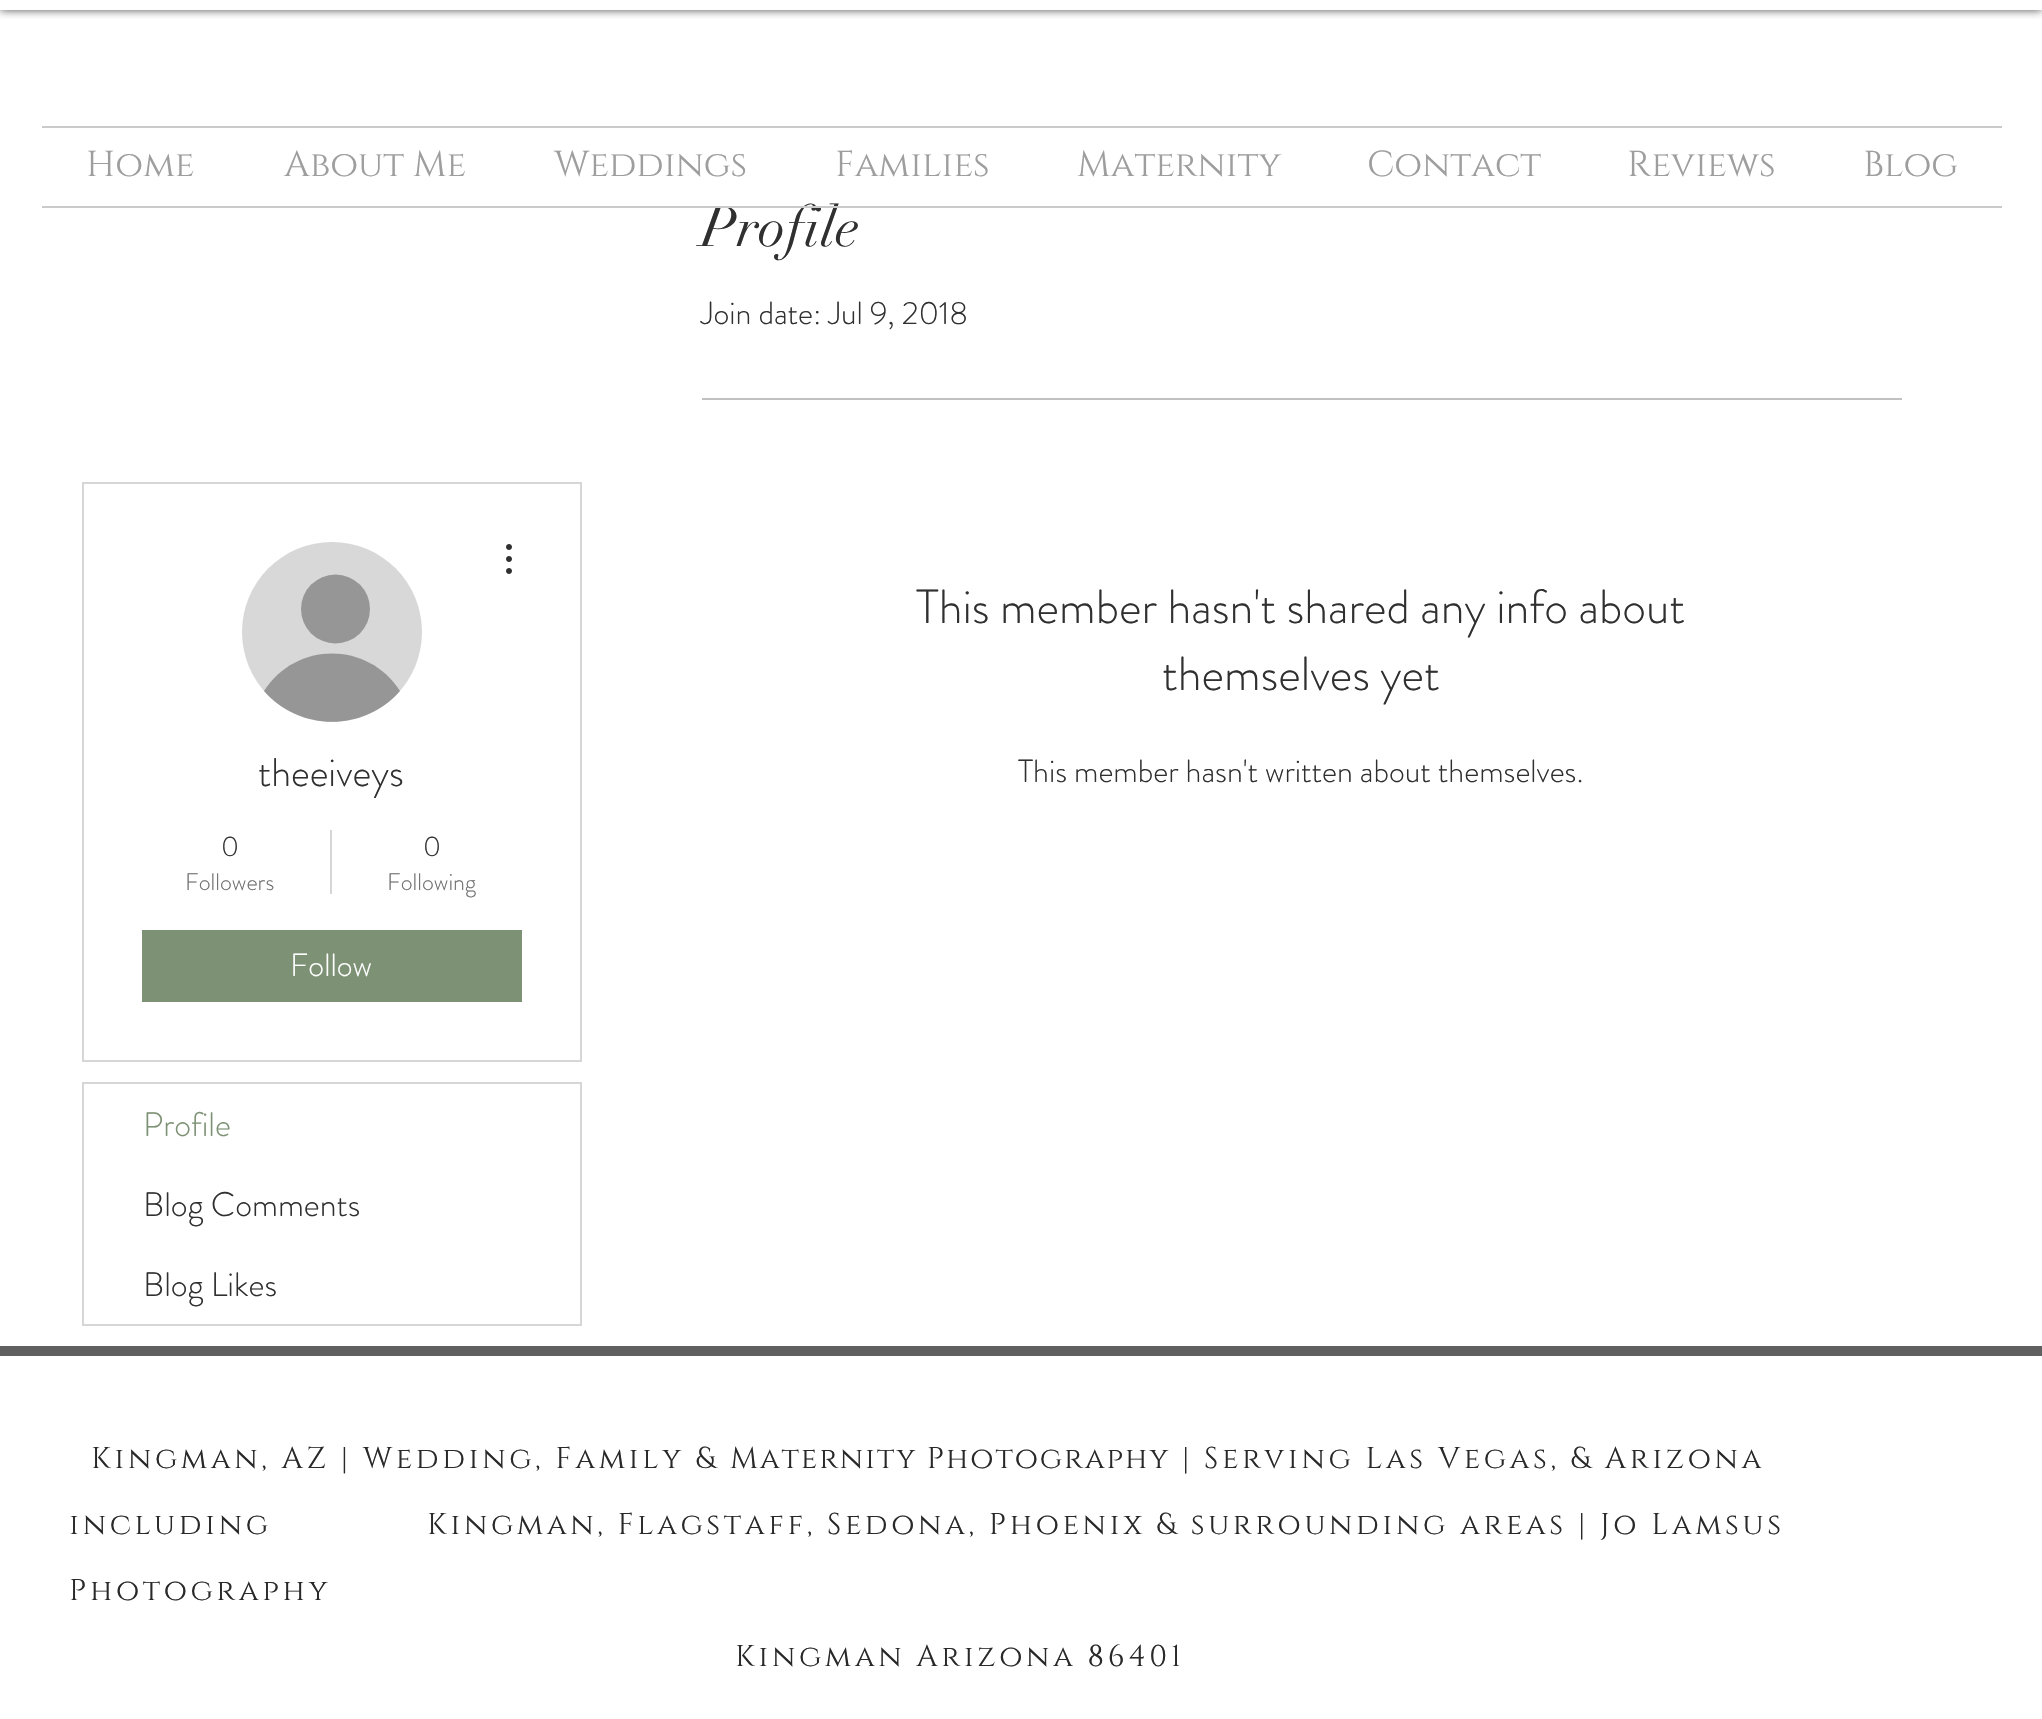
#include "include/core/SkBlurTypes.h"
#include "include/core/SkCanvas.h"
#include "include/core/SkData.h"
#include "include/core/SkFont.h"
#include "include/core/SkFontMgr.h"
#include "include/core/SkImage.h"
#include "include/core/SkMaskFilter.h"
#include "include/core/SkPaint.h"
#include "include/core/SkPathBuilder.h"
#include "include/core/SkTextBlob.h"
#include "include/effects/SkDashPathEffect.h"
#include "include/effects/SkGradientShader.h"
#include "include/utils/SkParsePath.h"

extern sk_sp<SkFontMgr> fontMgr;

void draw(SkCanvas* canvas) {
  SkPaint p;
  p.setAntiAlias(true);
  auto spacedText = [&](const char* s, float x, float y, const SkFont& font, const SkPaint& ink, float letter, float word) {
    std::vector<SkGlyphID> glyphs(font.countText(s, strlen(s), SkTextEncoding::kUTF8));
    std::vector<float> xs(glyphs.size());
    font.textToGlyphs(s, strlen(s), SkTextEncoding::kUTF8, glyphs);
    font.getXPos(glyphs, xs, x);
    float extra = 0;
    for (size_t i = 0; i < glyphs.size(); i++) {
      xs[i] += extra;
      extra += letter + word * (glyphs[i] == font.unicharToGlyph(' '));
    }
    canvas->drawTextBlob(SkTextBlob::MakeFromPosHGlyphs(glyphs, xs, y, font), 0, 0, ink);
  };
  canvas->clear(SK_ColorWHITE);
  canvas->save();
  canvas->clipRect(SkRect::MakeLTRB(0, 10, 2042, 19));
  p.setColor(SkColorSetARGB(179, 0, 0, 0));
  p.setMaskFilter(SkMaskFilter::MakeBlur(kNormal_SkBlurStyle, 5));
  canvas->drawRect(SkRect::MakeLTRB(0, 0, 2042, 10), p);
  p.setMaskFilter(nullptr);
  canvas->restore();
  p.setColor(SkColorSetRGB(202, 202, 202));
  canvas->drawRect(SkRect::MakeLTRB(42, 126, 2002, 128), p);
  p.setStyle(SkPaint::kStroke_Style);
  p.setStrokeWidth(2);
  p.setColor(SkColorSetRGB(214, 214, 214));
  canvas->drawRect(SkRect::MakeLTRB(83, 483, 581, 1061), p);
  p.setStyle(SkPaint::kFill_Style);
  p.setColor(SkColorSetRGB(216, 216, 216));
  canvas->drawCircle(332, 632, 90, p);
  p.setColor(SkColorSetRGB(150, 150, 150));
  canvas->drawCircle(335.5f, 609, 34.5f, p);
  canvas->drawPath(SkPathBuilder().moveTo(400, 691).cubicTo(364, 732, 300, 732, 264, 691).cubicTo(296, 641, 368, 641, 400, 691).close().detach(), p);
  canvas->drawImageRect(SkImages::DeferredFromEncodedData(SkData::MakeFromFileName("images/1.png")), SkRect::MakeLTRB(506, 544, 512, 574), SkSamplingOptions());
  p.setColor(SkColorSetRGB(214, 214, 214));
  canvas->drawRect(SkRect::MakeLTRB(330, 830, 332, 894), p);
  p.setColor(SkColorSetRGB(125, 145, 116));
  canvas->drawRect(SkRect::MakeLTRB(142, 930, 522, 1002), p);
  p.setStyle(SkPaint::kStroke_Style);
  p.setColor(SkColorSetRGB(214, 214, 214));
  canvas->drawRect(SkRect::MakeLTRB(83, 1083, 581, 1325), p);
  p.setStyle(SkPaint::kFill_Style);
  p.setColor(SkColorSetRGB(193, 193, 193));
  canvas->drawRect(SkRect::MakeLTRB(702, 398, 1902, 400), p);
  p.setColor(SkColorSetRGB(96, 96, 96));
  canvas->drawRect(SkRect::MakeLTRB(0, 1346, 2042, 1356), p);
  SkFont font1(fontMgr->matchFamilyStyle("Cinzel", SkFontStyle::Normal()), 36);
  font1.setSubpixel(true);
  p.setColor(SkColorSetRGB(158, 158, 158));
  canvas->drawString("Home", 86, 176, font1, p);
  canvas->drawString("About Me", 284, 176, font1, p);
  canvas->drawString("Weddings", 554, 176, font1, p);
  canvas->drawString("Families", 835, 176, font1, p);
  canvas->drawString("Maternity", 1077, 176, font1, p);
  canvas->drawString("Contact", 1367, 176, font1, p);
  canvas->drawString("Reviews", 1627, 176, font1, p);
  canvas->drawString("Blog", 1863, 176, font1, p);
  SkFont font2(fontMgr->matchFamilyStyle("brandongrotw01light", SkFontStyle(300, SkFontStyle::kNormal_Width, SkFontStyle::kUpright_Slant)), 40);
  font2.setSubpixel(true);
  p.setColor(SkColorSetRGB(48, 48, 48));
  canvas->drawString("theeiveys", 258, 786, font2, p);
  SkFont font3(fontMgr->matchFamilyStyle("brandongrotw01light", SkFontStyle(300, SkFontStyle::kNormal_Width, SkFontStyle::kUpright_Slant)), 28);
  font3.setSubpixel(true);
  canvas->drawString("0", 221, 856, font3, p);
  SkFont font4(fontMgr->matchFamilyStyle("brandongrotw01light", SkFontStyle(300, SkFontStyle::kNormal_Width, SkFontStyle::kUpright_Slant)), 24);
  font4.setSubpixel(true);
  p.setColor(SkColorSetRGB(110, 110, 110));
  canvas->drawString("Followers", 185, 890, font4, p);
  p.setColor(SkColorSetRGB(48, 48, 48));
  canvas->drawString("0", 423, 856, font3, p);
  p.setColor(SkColorSetRGB(110, 110, 110));
  canvas->drawString("Following", 387, 890, font4, p);
  SkFont font5(fontMgr->matchFamilyStyle("brandongrotw01light", SkFontStyle(300, SkFontStyle::kNormal_Width, SkFontStyle::kUpright_Slant)), 32);
  font5.setSubpixel(true);
  p.setColor(SK_ColorWHITE);
  canvas->drawString("Follow", 290, 976, font5, p);
  SkFont font6(fontMgr->matchFamilyStyle("brandongrotw01light", SkFontStyle(300, SkFontStyle::kNormal_Width, SkFontStyle::kUpright_Slant)), 34);
  font6.setSubpixel(true);
  p.setColor(SkColorSetRGB(125, 145, 116));
  canvas->drawString("Profile", 143, 1136, font6, p);
  p.setColor(SkColorSetRGB(48, 48, 48));
  canvas->drawString("Blog Comments", 143, 1216, font6, p);
  canvas->drawString("Blog Likes", 143, 1296, font6, p);
  SkFont font7(fontMgr->matchFamilyStyle("didot", SkFontStyle::Normal()), 56);
  font7.setSubpixel(true);
  canvas->drawString("Profile", 701, 246, font7, p);
  p.setColor(SkColorSetRGB(202, 202, 202));
  canvas->drawRect(SkRect::MakeLTRB(42, 206, 2002, 208), p);
  p.setColor(SkColorSetRGB(48, 48, 48));
  canvas->drawString("Join date: Jul 9, 2018", 701, 324, font5, p);
  SkFont font8(fontMgr->matchFamilyStyle("brandongrotw01light", SkFontStyle(300, SkFontStyle::kNormal_Width, SkFontStyle::kUpright_Slant)), 48);
  font8.setSubpixel(true);
  canvas->drawString("This member hasn't shared any info about", 916, 623, font8, p);
  canvas->drawString("themselves yet", 1162, 690, font8, p);
  canvas->drawString("This member hasn't written about themselves.", 1018, 782, font5, p);
  SkFont font9(fontMgr->matchFamilyStyle("Cinzel", SkFontStyle::Normal()), 30);
  font9.setSubpixel(true);
  p.setColor(SkColorSetRGB(41, 41, 41));
  spacedText("Kingman, AZ | Wedding, Family &", 91, 1468, font9, p, 3.6f, 0);
  spacedText("Maternity Photography", 730, 1468, font9, p, 1.9f, 0);
  spacedText("| Serving Las Vegas, & Arizona", 1182, 1468, font9, p, 3.6f, 0);
  spacedText("including              Kingman, Flagstaff, Sedona, Phoenix & surrounding areas | Jo Lamsus", 69, 1534, font9, p, 3.6f, 0);
  spacedText("Photography", 69, 1600, font9, p, 3.6f, 0);
  spacedText("Kingman Arizona 86401", 735, 1666, font9, p, 3.6f, 0);
}
